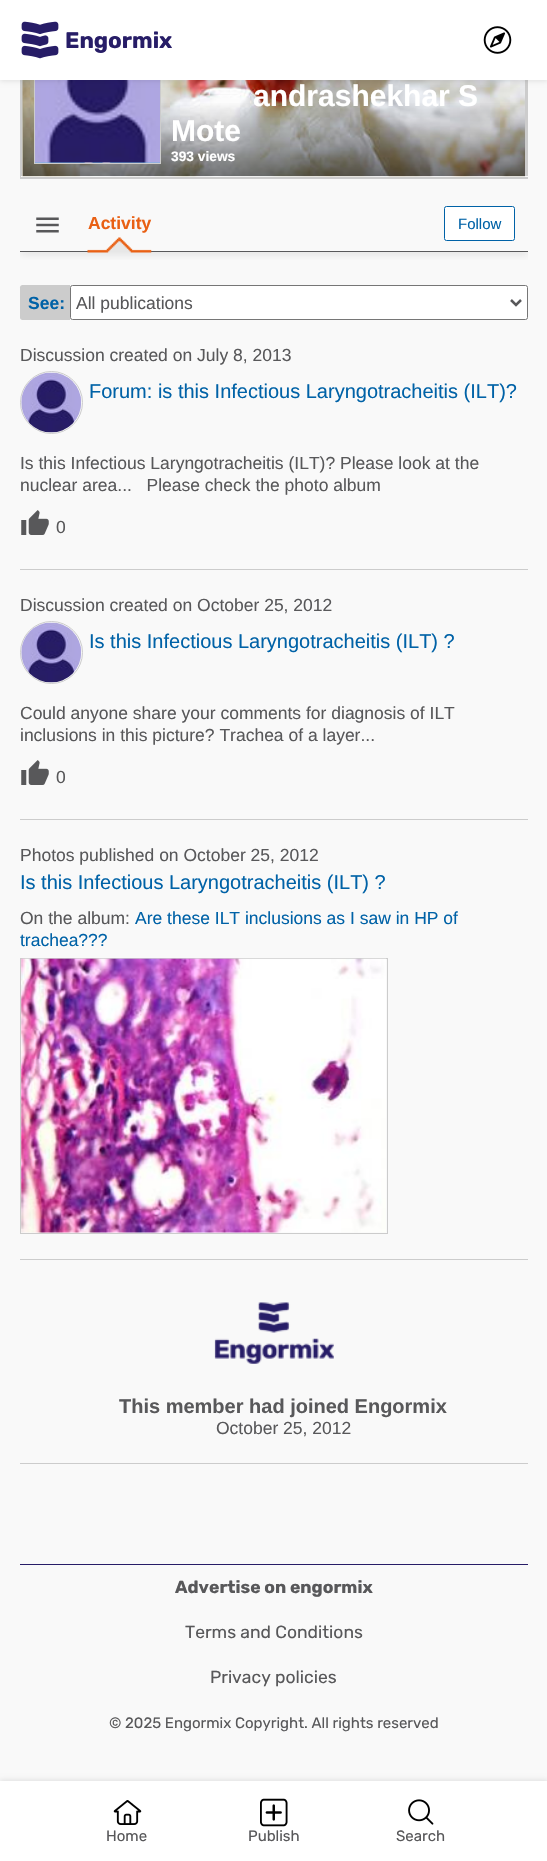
#include "include/core/SkBlurTypes.h"
#include "include/core/SkCanvas.h"
#include "include/core/SkData.h"
#include "include/core/SkFont.h"
#include "include/core/SkFontMgr.h"
#include "include/core/SkImage.h"
#include "include/core/SkMaskFilter.h"
#include "include/core/SkPaint.h"
#include "include/core/SkPathBuilder.h"
#include "include/core/SkTextBlob.h"
#include "include/effects/SkDashPathEffect.h"
#include "include/effects/SkGradientShader.h"
#include "include/utils/SkParsePath.h"

extern sk_sp<SkFontMgr> fontMgr;

void draw(SkCanvas* canvas) {
  SkPaint p;
  p.setAntiAlias(true);
  canvas->clear(SkColorSetRGB(249, 249, 249));
  canvas->save();
  canvas->clipRect(SkRect::MakeLTRB(20, 0, 528, 1786));
  p.setStyle(SkPaint::kStroke_Style);
  p.setStrokeWidth(1);
  p.setColor(SkColorSetRGB(204, 204, 204));
  canvas->drawRect(SkRect::MakeLTRB(20.5f, -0.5f, 529.5f, 177.5f), p);
  canvas->restore();
  p.setStyle(SkPaint::kFill_Style);
  canvas->drawRect(SkRect::MakeLTRB(21, 80, 528, 176), p);
  canvas->drawImageRect(SkImages::DeferredFromEncodedData(SkData::MakeFromFileName("images/8.png")), SkRect::MakeLTRB(22, 80, 525, 177), SkSamplingOptions());
  canvas->drawImageRect(SkImages::DeferredFromEncodedData(SkData::MakeFromFileName("images/6.png")), SkRect::MakeLTRB(35, 162, 160, 163), SkSamplingOptions());
  p.setStyle(SkPaint::kStroke_Style);
  canvas->drawRect(SkRect::MakeLTRB(34.5f, 36.5f, 160.5f, 163.5f), p);
  canvas->drawImageRect(SkImages::DeferredFromEncodedData(SkData::MakeFromFileName("images/7.png")), SkRect::MakeLTRB(35, 80, 160, 163), SkSamplingOptions());
  p.setStyle(SkPaint::kFill_Style);
  p.setColor(SkColorSetARGB(26, 0, 0, 0));
  p.setMaskFilter(SkMaskFilter::MakeBlur(kNormal_SkBlurStyle, 2.5f));
  canvas->drawRect(SkRect::MakeLTRB(0, 1, 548, 81), p);
  p.setMaskFilter(nullptr);
  p.setColor(SK_ColorWHITE);
  canvas->drawRect(SkRect::MakeLTRB(0, 0, 547, 80), p);
  canvas->drawImageRect(SkImages::DeferredFromEncodedData(SkData::MakeFromFileName("images/1.png")), SkRect::MakeLTRB(21, 21, 59, 59), SkSamplingOptions());
  canvas->drawImageRect(SkImages::DeferredFromEncodedData(SkData::MakeFromFileName("images/2.png")), SkRect::MakeLTRB(483, 26, 512, 54), SkSamplingOptions());
  p.setColor(SkColorSetARGB(26, 0, 0, 0));
  p.setMaskFilter(SkMaskFilter::MakeBlur(kNormal_SkBlurStyle, 2.5f));
  canvas->drawRect(SkRect::MakeLTRB(0, 1780, 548, 1860), p);
  p.setMaskFilter(nullptr);
  p.setColor(SK_ColorWHITE);
  canvas->drawRect(SkRect::MakeLTRB(0, 1781, 547, 1861), p);
  canvas->drawImageRect(SkImages::DeferredFromEncodedData(SkData::MakeFromFileName("images/3.png")), SkRect::MakeLTRB(113, 1800, 142, 1825), SkSamplingOptions());
  canvas->drawImageRect(SkImages::DeferredFromEncodedData(SkData::MakeFromFileName("images/4.png")), SkRect::MakeLTRB(260, 1798, 288, 1827), SkSamplingOptions());
  canvas->drawImageRect(SkImages::DeferredFromEncodedData(SkData::MakeFromFileName("images/5.png")), SkRect::MakeLTRB(408, 1799, 434, 1825), SkSamplingOptions());
  p.setColor(SkColorSetRGB(204, 204, 204));
  canvas->drawRect(SkRect::MakeLTRB(20, 178, 528, 179), p);
  canvas->drawImageRect(SkImages::DeferredFromEncodedData(SkData::MakeFromFileName("images/9.png")), SkRect::MakeLTRB(36, 217, 59, 233), SkSamplingOptions());
  canvas->save();
  canvas->clipRect(SkRect::MakeLTRB(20, 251, 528, 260));
  p.setColor(SkColorSetRGB(88, 88, 90));
  p.setMaskFilter(SkMaskFilter::MakeBlur(kNormal_SkBlurStyle, 4.5f));
  canvas->drawRect(SkRect::MakeLTRB(20, 251, 528, 252), p);
  p.setMaskFilter(nullptr);
  canvas->restore();
  canvas->drawRect(SkRect::MakeLTRB(20, 251, 528, 252), p);
  canvas->drawImageRect(SkImages::DeferredFromEncodedData(SkData::MakeFromFileName("images/10.png")), SkRect::MakeLTRB(87, 237, 152, 253), SkSamplingOptions());
  p.setColor(SK_ColorWHITE);
  canvas->drawRoundRect(SkRect::MakeLTRB(444.5f, 206.5f, 514.5f, 240.5f), 2, 2, p);
  p.setStyle(SkPaint::kStroke_Style);
  p.setColor(SkColorSetRGB(0, 98, 167));
  canvas->drawRoundRect(SkRect::MakeLTRB(444.5f, 206.5f, 514.5f, 240.5f), 2, 2, p);
  p.setStyle(SkPaint::kFill_Style);
  p.setColor(SkColorSetRGB(204, 204, 204));
  canvas->drawPath(SkPathBuilder().moveTo(22.5f, 285).lineTo(70, 285).lineTo(70, 320).lineTo(22.5f, 320).cubicTo(21, 320, 20, 319, 20, 317.5f).lineTo(20, 287.5f).cubicTo(20, 286, 21, 285, 22.5f, 285).close().detach(), p);
  p.setColor(SK_ColorWHITE);
  canvas->drawRoundRect(SkRect::MakeLTRB(70.5f, 285.5f, 527.5f, 319.5f), 2, 2, p);
  p.setStyle(SkPaint::kStroke_Style);
  p.setColor(SkColorSetRGB(118, 118, 118));
  canvas->drawRoundRect(SkRect::MakeLTRB(70.5f, 285.5f, 527.5f, 319.5f), 2, 2, p);
  p.setStrokeWidth(2.5f);
  p.setColor(SkColorSetRGB(88, 88, 90));
  canvas->drawPath(SkPathBuilder().moveTo(511, 300).lineTo(516, 305).lineTo(521, 300).detach(), p);
  p.setStrokeWidth(1);
  p.setColor(SkColorSetRGB(204, 204, 204));
  canvas->drawCircle(51.5f, 402.5f, 31, p);
  canvas->drawImageRect(SkImages::DeferredFromEncodedData(SkData::MakeFromFileName("images/11.png")), SkRect::MakeLTRB(21, 372, 82, 433), SkSamplingOptions());
  canvas->drawImageRect(SkImages::DeferredFromEncodedData(SkData::MakeFromFileName("images/12.png")), SkRect::MakeLTRB(21, 510, 49, 535), SkSamplingOptions());
  p.setStyle(SkPaint::kFill_Style);
  canvas->drawRect(SkRect::MakeLTRB(20, 569, 528, 570), p);
  p.setStyle(SkPaint::kStroke_Style);
  canvas->drawCircle(51.5f, 652.5f, 31, p);
  canvas->drawImageRect(SkImages::DeferredFromEncodedData(SkData::MakeFromFileName("images/11.png")), SkRect::MakeLTRB(21, 622, 82, 683), SkSamplingOptions());
  canvas->drawImageRect(SkImages::DeferredFromEncodedData(SkData::MakeFromFileName("images/12.png")), SkRect::MakeLTRB(21, 760, 49, 785), SkSamplingOptions());
  p.setStyle(SkPaint::kFill_Style);
  canvas->drawRect(SkRect::MakeLTRB(20, 819, 528, 820), p);
  p.setStyle(SkPaint::kStroke_Style);
  canvas->drawRect(SkRect::MakeLTRB(20.5f, 958.5f, 387.5f, 1233.5f), p);
  canvas->drawImageRect(SkImages::DeferredFromEncodedData(SkData::MakeFromFileName("images/13.png")), SkRect::MakeLTRB(21, 958, 386, 1233), SkSamplingOptions());
  p.setStyle(SkPaint::kFill_Style);
  canvas->drawRect(SkRect::MakeLTRB(20, 1259, 528, 1260), p);
  canvas->drawImageRect(SkImages::DeferredFromEncodedData(SkData::MakeFromFileName("images/14.png")), SkRect::MakeLTRB(214, 1302, 334, 1364), SkSamplingOptions());
  canvas->drawRect(SkRect::MakeLTRB(20, 1463, 528, 1464), p);
  p.setColor(SkColorSetRGB(39, 29, 103));
  canvas->drawRect(SkRect::MakeLTRB(20, 1564, 528, 1565), p);
  SkFont font1(fontMgr->matchFamilyStyle("Rubik", SkFontStyle::Bold()), 22.5f);
  font1.setSubpixel(true);
  canvas->drawString("Engormix", 65, 48, font1, p);
  SkFont font2(fontMgr->matchFamilyStyle("Rubik", SkFontStyle::Normal()), 15);
  font2.setSubpixel(true);
  p.setColor(SkColorSetRGB(88, 88, 90));
  canvas->drawString("Home", 106, 1841, font2, p);
  canvas->drawString("Publish", 248, 1841, font2, p);
  canvas->drawString("Search", 396, 1841, font2, p);
  SkFont font3(fontMgr->matchFamilyStyle("Liberation Sans", SkFontStyle::Bold()), 30);
  font3.setSubpixel(true);
  p.setColor(SK_ColorWHITE);
  canvas->drawString("andrashekhar S", 253, 106, font3, p);
  canvas->drawString("Mote", 171, 141, font3, p);
  SkFont font4(fontMgr->matchFamilyStyle("Liberation Sans", SkFontStyle::Bold()), 13.75f);
  font4.setSubpixel(true);
  canvas->drawString("393 views", 171, 161, font4, p);
  SkFont font5(fontMgr->matchFamilyStyle("Liberation Sans", SkFontStyle::Bold()), 17.5f);
  font5.setSubpixel(true);
  p.setColor(SkColorSetRGB(233, 96, 20));
  canvas->drawString("Activity", 88, 229, font5, p);
  SkFont font6(fontMgr->matchFamilyStyle("Liberation Sans", SkFontStyle::Normal()), 15);
  font6.setSubpixel(true);
  p.setColor(SkColorSetRGB(0, 98, 167));
  canvas->drawString("Follow", 458, 229, font6, p);
  canvas->drawString("See:", 28, 309, font5, p);
  SkFont font7(fontMgr->matchFamilyStyle("Liberation Sans", SkFontStyle::Normal()), 17.5f);
  font7.setSubpixel(true);
  p.setColor(SkColorSetRGB(88, 88, 90));
  canvas->drawString("All publications", 76, 309, font7, p);
  canvas->drawString("Discussion created on July 8, 2013", 20, 361, font7, p);
  SkFont font8(fontMgr->matchFamilyStyle("Liberation Sans", SkFontStyle::Normal()), 20);
  font8.setSubpixel(true);
  p.setColor(SkColorSetRGB(0, 98, 167));
  canvas->drawString("Forum: is this Infectious Laryngotracheitis (ILT)?", 89, 398, font8, p);
  p.setColor(SkColorSetRGB(88, 88, 90));
  canvas->drawString("Is this Infectious Laryngotracheitis (ILT)? Please look at the", 20, 469, font7, p);
  canvas->drawString("nuclear area...   Please check the photo album", 20, 491, font7, p);
  canvas->drawString("0", 56, 533, font7, p);
  canvas->drawString("Discussion created on October 25, 2012", 20, 611, font7, p);
  p.setColor(SkColorSetRGB(0, 98, 167));
  canvas->drawString("Is this Infectious Laryngotracheitis (ILT) ?", 89, 648, font8, p);
  p.setColor(SkColorSetRGB(88, 88, 90));
  canvas->drawString("Could anyone share your comments for diagnosis of ILT", 20, 719, font7, p);
  canvas->drawString("inclusions in this picture? Trachea of a layer...", 20, 741, font7, p);
  canvas->drawString("0", 56, 783, font7, p);
  canvas->drawString("Photos published on October 25, 2012", 20, 861, font7, p);
  p.setColor(SkColorSetRGB(0, 98, 167));
  canvas->drawString("Is this Infectious Laryngotracheitis (ILT) ?", 20, 889, font8, p);
  p.setColor(SkColorSetRGB(88, 88, 90));
  canvas->drawString("On the album:", 20, 924, font7, p);
  p.setColor(SkColorSetRGB(0, 98, 167));
  canvas->drawString("Are these ILT inclusions as I saw in HP of", 135, 924, font7, p);
  canvas->drawString("trachea?\077?", 20, 946, font7, p);
  SkFont font9(fontMgr->matchFamilyStyle("Liberation Sans", SkFontStyle::Bold()), 20);
  font9.setSubpixel(true);
  p.setColor(SkColorSetRGB(88, 88, 90));
  canvas->drawString("This member had joined Engormix", 119, 1413, font9, p);
  canvas->drawString("October 25, 2012", 216, 1434, font7, p);
  SkFont font10(fontMgr->matchFamilyStyle("Rubik", SkFontStyle::Bold()), 17.5f);
  font10.setSubpixel(true);
  canvas->drawString("Advertise on engormix", 175, 1593, font10, p);
  SkFont font11(fontMgr->matchFamilyStyle("Rubik", SkFontStyle::Normal()), 17.5f);
  font11.setSubpixel(true);
  canvas->drawString("Terms and Conditions", 185, 1638, font11, p);
  canvas->drawString("Privacy policies", 210, 1683, font11, p);
  canvas->drawString("© 2025 Engormix Copyright. All rights reserved", 109, 1728, font2, p);
}
